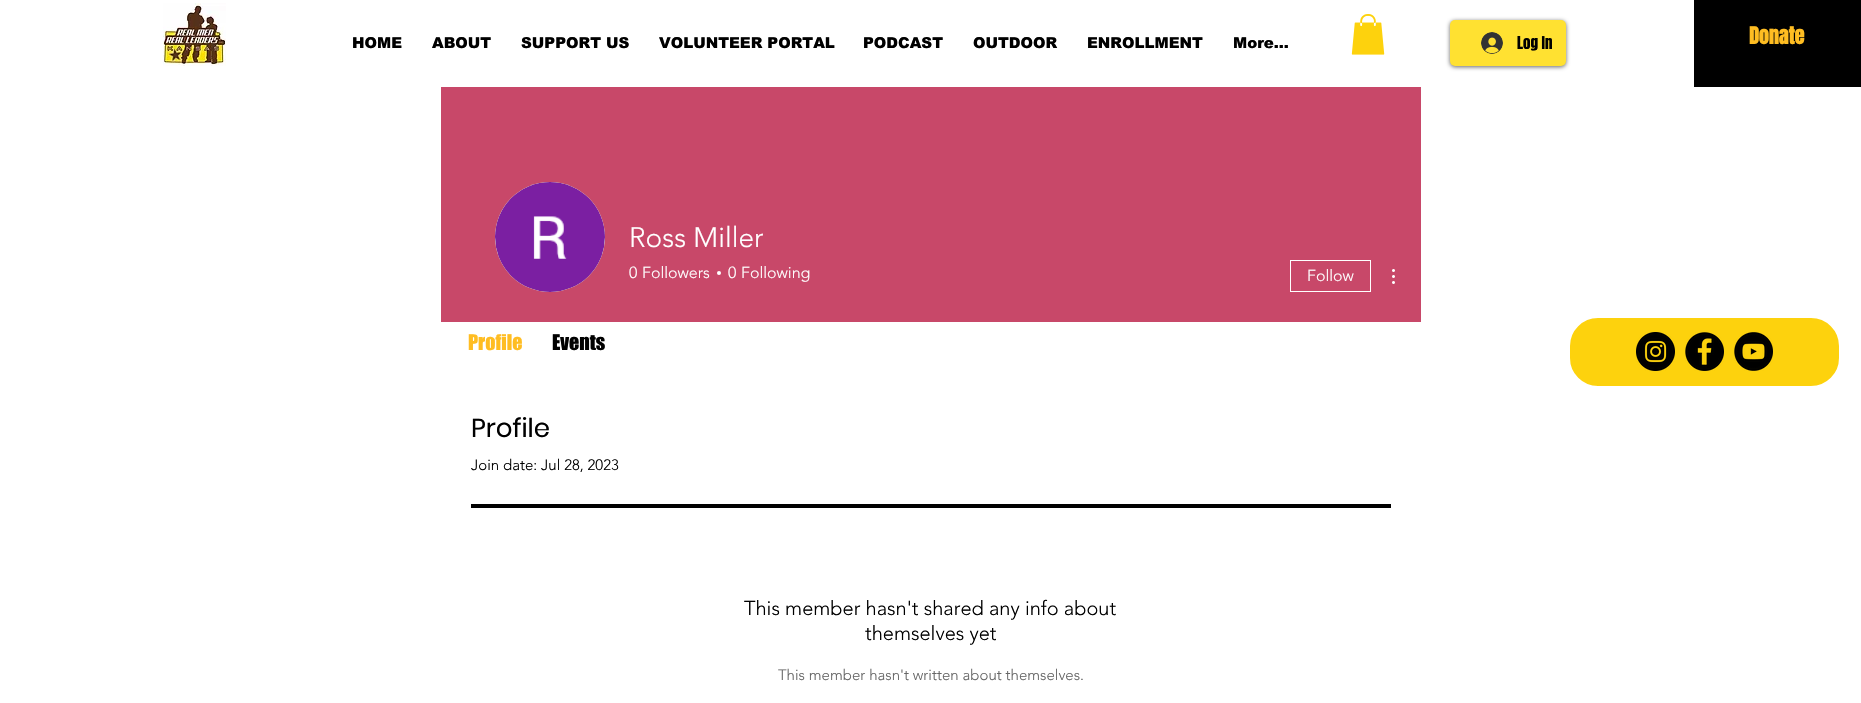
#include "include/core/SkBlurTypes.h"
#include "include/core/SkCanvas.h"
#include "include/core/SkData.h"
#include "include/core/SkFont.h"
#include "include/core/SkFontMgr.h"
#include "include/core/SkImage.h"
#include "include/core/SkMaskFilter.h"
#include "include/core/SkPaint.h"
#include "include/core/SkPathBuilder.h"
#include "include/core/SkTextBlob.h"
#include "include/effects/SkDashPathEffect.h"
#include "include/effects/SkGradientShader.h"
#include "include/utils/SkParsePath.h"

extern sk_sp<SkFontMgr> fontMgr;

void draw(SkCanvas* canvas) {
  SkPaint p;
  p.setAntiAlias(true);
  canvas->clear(SK_ColorWHITE);
  canvas->drawImageRect(SkImages::DeferredFromEncodedData(SkData::MakeFromFileName("images/1.png")), SkRect::MakeLTRB(163, 3, 226, 66), SkSamplingOptions());
  canvas->drawImageRect(SkImages::DeferredFromEncodedData(SkData::MakeFromFileName("images/2.png")), SkRect::MakeLTRB(1351, 14, 1385, 55), SkSamplingOptions());
  p.setColor(SkColorSetARGB(153, 0, 0, 0));
  p.setMaskFilter(SkMaskFilter::MakeBlur(kNormal_SkBlurStyle, 2));
  canvas->drawRoundRect(SkRect::MakeLTRB(1450, 21, 1566, 67), 5, 5, p);
  p.setMaskFilter(nullptr);
  p.setColor(SkColorSetRGB(255, 225, 49));
  canvas->drawRoundRect(SkRect::MakeLTRB(1450, 20, 1566, 66), 5, 5, p);
  canvas->drawImageRect(SkImages::DeferredFromEncodedData(SkData::MakeFromFileName("images/3.png")), SkRect::MakeLTRB(1481, 32, 1503, 54), SkSamplingOptions());
  p.setColor(SK_ColorBLACK);
  canvas->drawRect(SkRect::MakeLTRB(1694, 0, 1861, 87), p);
  p.setColor(SkColorSetRGB(200, 72, 105));
  canvas->drawRect(SkRect::MakeLTRB(441, 87, 1421, 322), p);
  p.setColor(SkColorSetRGB(216, 216, 216));
  canvas->drawCircle(550, 237, 55, p);
  canvas->drawImageRect(SkImages::DeferredFromEncodedData(SkData::MakeFromFileName("images/4.png")), SkRect::MakeLTRB(495, 182, 605, 292), SkSamplingOptions());
  p.setColor(SK_ColorWHITE);
  canvas->drawCircle(719, 273, 2, p);
  p.setStyle(SkPaint::kStroke_Style);
  p.setStrokeWidth(1);
  canvas->drawRect(SkRect::MakeLTRB(1290.5f, 260.5f, 1370.5f, 291.5f), p);
  canvas->drawImageRect(SkImages::DeferredFromEncodedData(SkData::MakeFromFileName("images/5.png")), SkRect::MakeLTRB(1392, 269, 1395, 284), SkSamplingOptions());
  p.setStyle(SkPaint::kFill_Style);
  p.setColor(SkColorSetRGB(253, 210, 13));
  canvas->drawRoundRect(SkRect::MakeLTRB(1569, 317, 1840, 387), 29, 29, p);
  p.setStyle(SkPaint::kStroke_Style);
  p.setStrokeWidth(2);
  p.setColor(SK_ColorWHITE);
  canvas->drawRoundRect(SkRect::MakeLTRB(1569, 317, 1840, 387), 29, 29, p);
  canvas->drawImageRect(SkImages::DeferredFromEncodedData(SkData::MakeFromFileName("images/6.png")), SkRect::MakeLTRB(1636, 332, 1675, 371), SkSamplingOptions());
  canvas->drawImageRect(SkImages::DeferredFromEncodedData(SkData::MakeFromFileName("images/7.png")), SkRect::MakeLTRB(1685, 332, 1724, 371), SkSamplingOptions());
  canvas->drawImageRect(SkImages::DeferredFromEncodedData(SkData::MakeFromFileName("images/8.png")), SkRect::MakeLTRB(1734, 332, 1773, 371), SkSamplingOptions());
  p.setStyle(SkPaint::kFill_Style);
  p.setColor(SK_ColorBLACK);
  canvas->drawRect(SkRect::MakeLTRB(471, 504, 1391, 508), p);
  SkFont font1(fontMgr->matchFamilyStyle("arial", SkFontStyle(900, SkFontStyle::kNormal_Width, SkFontStyle::kUpright_Slant)), 15);
  font1.setSubpixel(true);
  canvas->drawString("HOME", 352, 48, font1, p);
  canvas->drawString("ABOUT", 432, 48, font1, p);
  canvas->drawString("SUPPORT US", 521, 48, font1, p);
  canvas->drawString("VOLUNTEER PORTAL", 659, 48, font1, p);
  canvas->drawString("PODCAST", 863, 48, font1, p);
  canvas->drawString("OUTDOOR", 973, 48, font1, p);
  canvas->drawString("ENROLLMENT", 1087, 48, font1, p);
  canvas->drawString("More...", 1233, 48, font1, p);
  SkFont font2(fontMgr->matchFamilyStyle("Anton", SkFontStyle::Normal()), 15);
  font2.setSubpixel(true);
  canvas->drawString("Log In", 1517, 49, font2, p);
  SkFont font3(fontMgr->matchFamilyStyle("Anton", SkFontStyle::Bold()), 20);
  font3.setSubpixel(true);
  p.setColor(SkColorSetRGB(255, 189, 34));
  canvas->drawString("Donate", 1749, 44, font3, p);
  SkFont font4(fontMgr->matchFamilyStyle("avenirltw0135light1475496", SkFontStyle(300, SkFontStyle::kNormal_Width, SkFontStyle::kUpright_Slant)), 28);
  font4.setSubpixel(true);
  p.setColor(SK_ColorWHITE);
  canvas->drawString("Ross Miller", 629, 247, font4, p);
  SkFont font5(fontMgr->matchFamilyStyle("avenirltw0135light1475496", SkFontStyle(300, SkFontStyle::kNormal_Width, SkFontStyle::kUpright_Slant)), 16);
  font5.setSubpixel(true);
  canvas->drawString("0", 629, 278, font5, p);
  canvas->drawString("Followers", 642, 278, font5, p);
  canvas->drawString("0", 728, 278, font5, p);
  canvas->drawString("Following", 741, 278, font5, p);
  canvas->drawString("Follow", 1307, 281, font5, p);
  SkFont font6(fontMgr->matchFamilyStyle("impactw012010", SkFontStyle::Normal()), 20);
  font6.setSubpixel(true);
  p.setColor(SkColorSetRGB(255, 189, 34));
  canvas->drawString("Profile", 468, 350, font6, p);
  p.setColor(SK_ColorBLACK);
  canvas->drawString("Events", 552, 350, font6, p);
  SkFont font7(fontMgr->matchFamilyStyle("Poppins", SkFontStyle::Normal()), 26);
  font7.setSubpixel(true);
  canvas->drawString("Profile", 471, 437, font7, p);
  SkFont font8(fontMgr->matchFamilyStyle("avenirltw0135light1475496", SkFontStyle(300, SkFontStyle::kNormal_Width, SkFontStyle::kUpright_Slant)), 15);
  font8.setSubpixel(true);
  canvas->drawString("Join date: Jul 28, 2023", 471, 470, font8, p);
  SkFont font9(fontMgr->matchFamilyStyle("avenirltw0135light1475496", SkFontStyle(300, SkFontStyle::kNormal_Width, SkFontStyle::kUpright_Slant)), 20);
  font9.setSubpixel(true);
  canvas->drawString("This member hasn't shared any info about", 744, 615, font9, p);
  canvas->drawString("themselves yet", 865, 640, font9, p);
  p.setColor(SkColorSetRGB(102, 102, 102));
  canvas->drawString("This member hasn't written about themselves.", 778, 680, font8, p);
}
